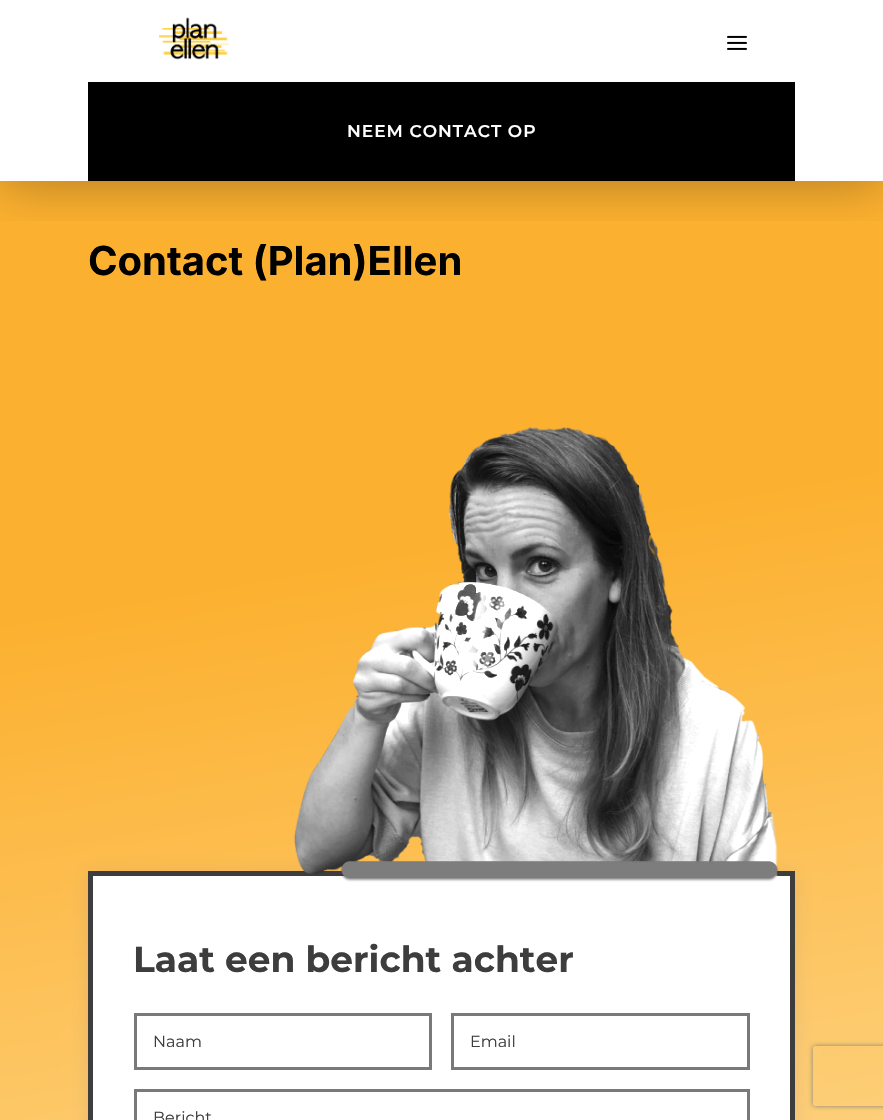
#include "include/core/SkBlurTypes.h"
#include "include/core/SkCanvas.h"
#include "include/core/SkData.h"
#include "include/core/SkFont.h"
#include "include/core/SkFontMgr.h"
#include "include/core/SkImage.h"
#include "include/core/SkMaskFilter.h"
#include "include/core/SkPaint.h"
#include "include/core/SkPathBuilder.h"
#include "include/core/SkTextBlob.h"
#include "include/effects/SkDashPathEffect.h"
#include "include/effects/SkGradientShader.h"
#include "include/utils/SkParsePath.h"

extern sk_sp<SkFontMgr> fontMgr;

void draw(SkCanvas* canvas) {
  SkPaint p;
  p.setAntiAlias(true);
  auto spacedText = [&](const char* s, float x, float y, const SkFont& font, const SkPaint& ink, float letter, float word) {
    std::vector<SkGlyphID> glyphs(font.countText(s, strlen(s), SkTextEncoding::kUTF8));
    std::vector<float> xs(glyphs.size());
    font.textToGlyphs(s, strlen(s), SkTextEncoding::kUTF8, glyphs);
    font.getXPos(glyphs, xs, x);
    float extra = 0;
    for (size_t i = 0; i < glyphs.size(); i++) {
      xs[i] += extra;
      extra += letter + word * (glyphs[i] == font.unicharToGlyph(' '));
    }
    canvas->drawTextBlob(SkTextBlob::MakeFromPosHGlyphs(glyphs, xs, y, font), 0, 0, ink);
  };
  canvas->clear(SK_ColorWHITE);
  {
    const SkColor colors[] = {SkColorSetRGB(252, 176, 47), SkColorSetRGB(255, 244, 208)};
    const float stops[] = {0.23f, 1};
    const SkPoint ends[] = {{279, 132}, {604, 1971}};
    p.setShader(SkGradientShader::MakeLinear(ends, colors, stops, 2, SkTileMode::kClamp));
    p.setAlpha(255);
  }
  canvas->drawRect(SkRect::MakeLTRB(0, 181, 883, 1120), p);
  canvas->save();
  canvas->clipRect(SkRect::MakeLTRB(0, 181, 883, 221));
  p.setShader(nullptr);
  p.setColor(SkColorSetARGB(77, 0, 0, 0));
  p.setMaskFilter(SkMaskFilter::MakeBlur(kNormal_SkBlurStyle, 25));
  canvas->drawRect(SkRect::MakeLTRB(0, 2, 883, 183), p);
  p.setMaskFilter(nullptr);
  canvas->restore();
  canvas->drawImageRect(SkImages::DeferredFromEncodedData(SkData::MakeFromFileName("images/1.png")), SkRect::MakeLTRB(159, 17, 229, 60), SkSamplingOptions());
  canvas->drawImageRect(SkImages::DeferredFromEncodedData(SkData::MakeFromFileName("images/2.png")), SkRect::MakeLTRB(727, 35, 747, 50), SkSamplingOptions());
  p.setColor(SK_ColorBLACK);
  canvas->drawRect(SkRect::MakeLTRB(88, 82, 795, 181), p);
  p.setColor(SkColorSetARGB(31, 71, 74, 182));
  p.setMaskFilter(SkMaskFilter::MakeBlur(kNormal_SkBlurStyle, 9));
  canvas->drawRect(SkRect::MakeLTRB(88, 873, 795, 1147), p);
  p.setMaskFilter(nullptr);
  p.setColor(SK_ColorWHITE);
  canvas->drawRect(SkRect::MakeLTRB(90.5f, 873.5f, 792.5f, 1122.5f), p);
  p.setStyle(SkPaint::kStroke_Style);
  p.setStrokeWidth(5);
  p.setColor(SkColorSetRGB(61, 61, 61));
  canvas->drawRect(SkRect::MakeLTRB(90.5f, 873.5f, 792.5f, 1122.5f), p);
  canvas->drawImageRect(SkImages::DeferredFromEncodedData(SkData::MakeFromFileName("images/3.png")), SkRect::MakeLTRB(294, 427, 779, 882), SkSamplingOptions());
  p.setStrokeWidth(3);
  p.setColor(SkColorSetRGB(121, 121, 121));
  canvas->drawRect(SkRect::MakeLTRB(135.5f, 1014.5f, 430.5f, 1068.5f), p);
  canvas->drawRect(SkRect::MakeLTRB(452.5f, 1014.5f, 748.5f, 1068.5f), p);
  canvas->drawRect(SkRect::MakeLTRB(135.5f, 1090.5f, 748.5f, 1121.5f), p);
  canvas->save();
  canvas->clipPath(SkPathBuilder(SkPathFillType::kEvenOdd).moveTo(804, 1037).lineTo(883, 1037).lineTo(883, 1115).lineTo(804, 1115).close().moveTo(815, 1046).lineTo(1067, 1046).cubicTo(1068, 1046, 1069, 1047, 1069, 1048).lineTo(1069, 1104).cubicTo(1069, 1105, 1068, 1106, 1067, 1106).lineTo(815, 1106).cubicTo(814, 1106, 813, 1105, 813, 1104).lineTo(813, 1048).cubicTo(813, 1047, 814, 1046, 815, 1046).close().detach(), true);
  p.setStyle(SkPaint::kFill_Style);
  p.setColor(SkColorSetRGB(128, 128, 128));
  p.setMaskFilter(SkMaskFilter::MakeBlur(kNormal_SkBlurStyle, 2.5f));
  canvas->drawRoundRect(SkRect::MakeLTRB(813, 1046, 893, 1106), 2, 2, p);
  p.setMaskFilter(nullptr);
  canvas->restore();
  SkFont font1(fontMgr->matchFamilyStyle("Montserrat", SkFontStyle(600, SkFontStyle::kNormal_Width, SkFontStyle::kUpright_Slant)), 17);
  font1.setSubpixel(true);
  p.setColor(SK_ColorWHITE);
  spacedText("NEEM CONTACT OP", 347, 137, font1, p, 1, 0);
  SkFont font2(fontMgr->matchFamilyStyle("Inter", SkFontStyle::Bold()), 40);
  font2.setSubpixel(true);
  p.setColor(SK_ColorBLACK);
  canvas->drawString("Contact (Plan)Ellen", 88, 275, font2, p);
  SkFont font3(fontMgr->matchFamilyStyle("Montserrat", SkFontStyle::Bold()), 36);
  font3.setSubpixel(true);
  p.setColor(SkColorSetRGB(61, 61, 61));
  canvas->drawString("Laat een bericht achter", 133, 972, font3, p);
  SkFont font4(fontMgr->matchFamilyStyle("Montserrat", SkFontStyle::Normal()), 16);
  font4.setSubpixel(true);
  canvas->drawString("Naam", 153, 1047, font4, p);
  canvas->drawString("Email", 470, 1047, font4, p);
  canvas->drawString("Bericht", 153, 1123, font4, p);
}
